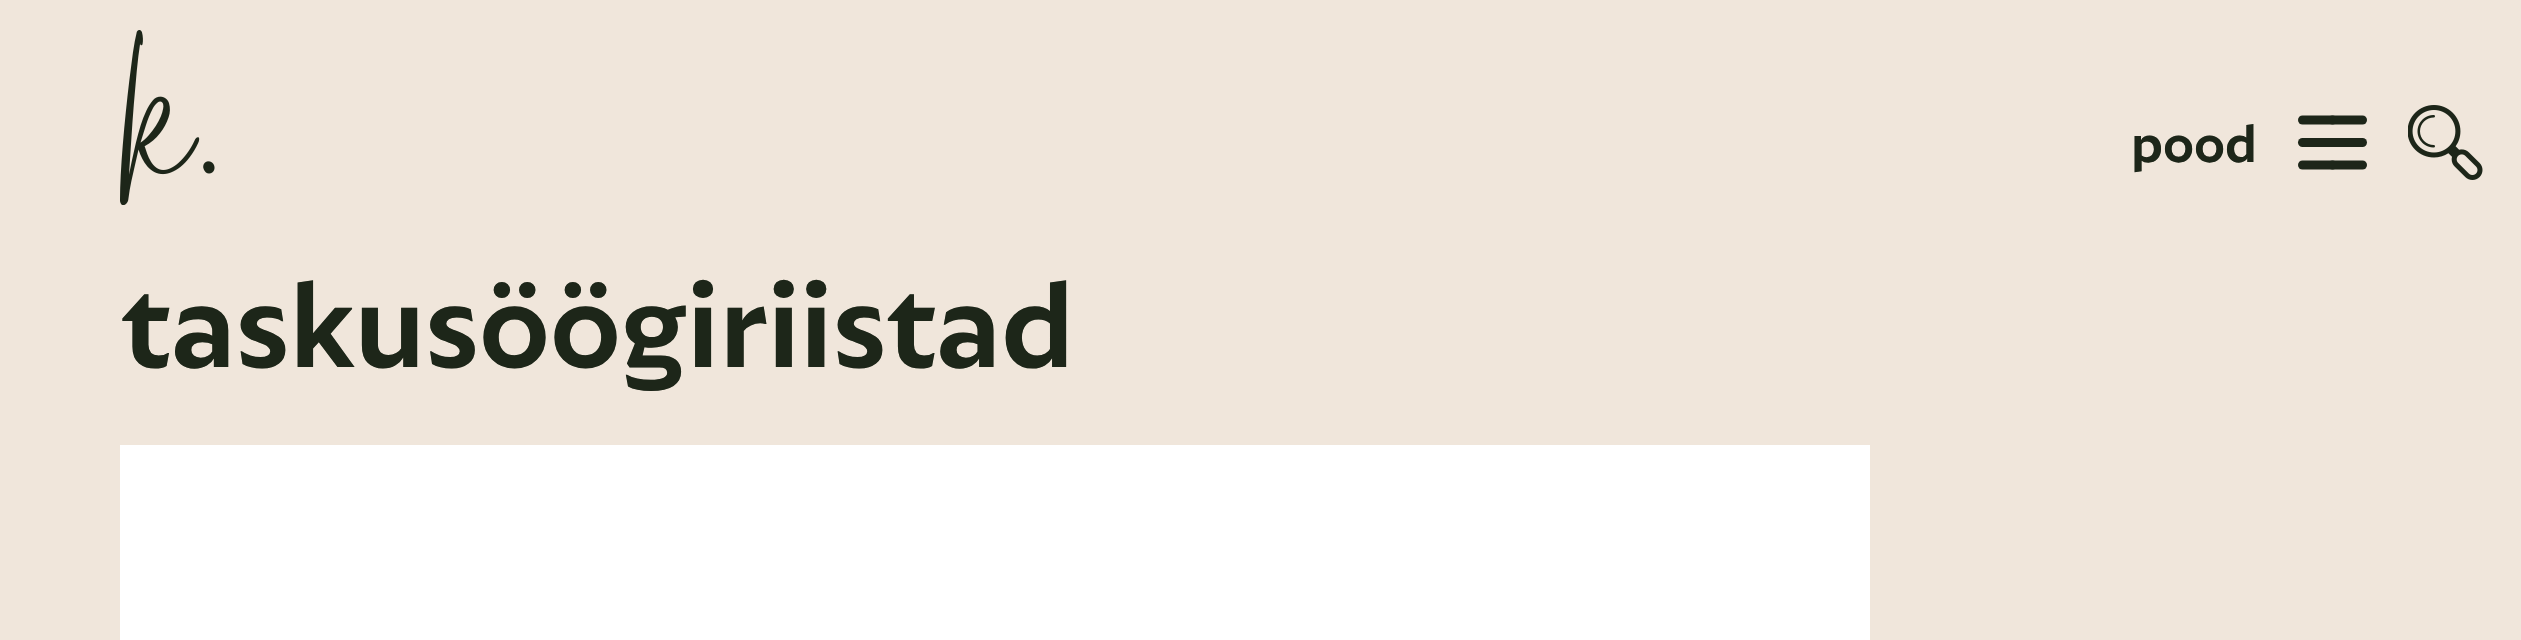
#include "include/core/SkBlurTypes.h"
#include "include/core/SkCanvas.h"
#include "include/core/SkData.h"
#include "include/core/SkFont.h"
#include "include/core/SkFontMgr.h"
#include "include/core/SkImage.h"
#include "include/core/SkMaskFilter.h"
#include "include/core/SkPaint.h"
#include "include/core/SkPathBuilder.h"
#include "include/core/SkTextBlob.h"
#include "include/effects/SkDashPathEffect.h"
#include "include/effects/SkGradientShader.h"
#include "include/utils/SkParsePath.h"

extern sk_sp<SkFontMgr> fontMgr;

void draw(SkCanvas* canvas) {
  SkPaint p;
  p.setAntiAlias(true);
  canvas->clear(SkColorSetRGB(240, 230, 219));
  canvas->drawImageRect(SkImages::DeferredFromEncodedData(SkData::MakeFromFileName("images/1.png")), SkRect::MakeLTRB(120, 30, 215, 205), SkSamplingOptions());
  p.setStyle(SkPaint::kStroke_Style);
  p.setStrokeWidth(9);
  p.setStrokeCap(SkPaint::kRound_Cap);
  p.setStrokeJoin(SkPaint::kRound_Join);
  p.setColor(SkColorSetRGB(29, 38, 25));
  canvas->drawPath(SkPathBuilder().moveTo(2332.5f, 120).lineTo(2302.5f, 120).detach(), p);
  canvas->drawPath(SkPathBuilder().moveTo(2332.5f, 120).lineTo(2362.5f, 120).detach(), p);
  canvas->drawPath(SkPathBuilder().moveTo(2332.5f, 142.5f).lineTo(2302.5f, 142.5f).detach(), p);
  canvas->drawPath(SkPathBuilder().moveTo(2332.5f, 142.5f).lineTo(2362.5f, 142.5f).detach(), p);
  canvas->drawPath(SkPathBuilder().moveTo(2332.5f, 165).lineTo(2302.5f, 165).detach(), p);
  canvas->drawPath(SkPathBuilder().moveTo(2332.5f, 165).lineTo(2362.5f, 165).detach(), p);
  canvas->drawImageRect(SkImages::DeferredFromEncodedData(SkData::MakeFromFileName("images/2.png")), SkRect::MakeLTRB(2408, 105, 2483, 180), SkSamplingOptions());
  p.setStyle(SkPaint::kFill_Style);
  p.setColor(SK_ColorWHITE);
  canvas->drawRect(SkRect::MakeLTRB(120, 445, 1870, 640), p);
  SkFont font1(fontMgr->matchFamilyStyle("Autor", SkFontStyle::Bold()), 53);
  font1.setSubpixel(true);
  p.setColor(SkColorSetRGB(29, 38, 25));
  canvas->drawString("pood", 2131, 162, font1, p);
  SkFont font2(fontMgr->matchFamilyStyle("Autor", SkFontStyle::Bold()), 121);
  font2.setSubpixel(true);
  canvas->drawString("taskusöögiriistad", 121, 367, font2, p);
}
